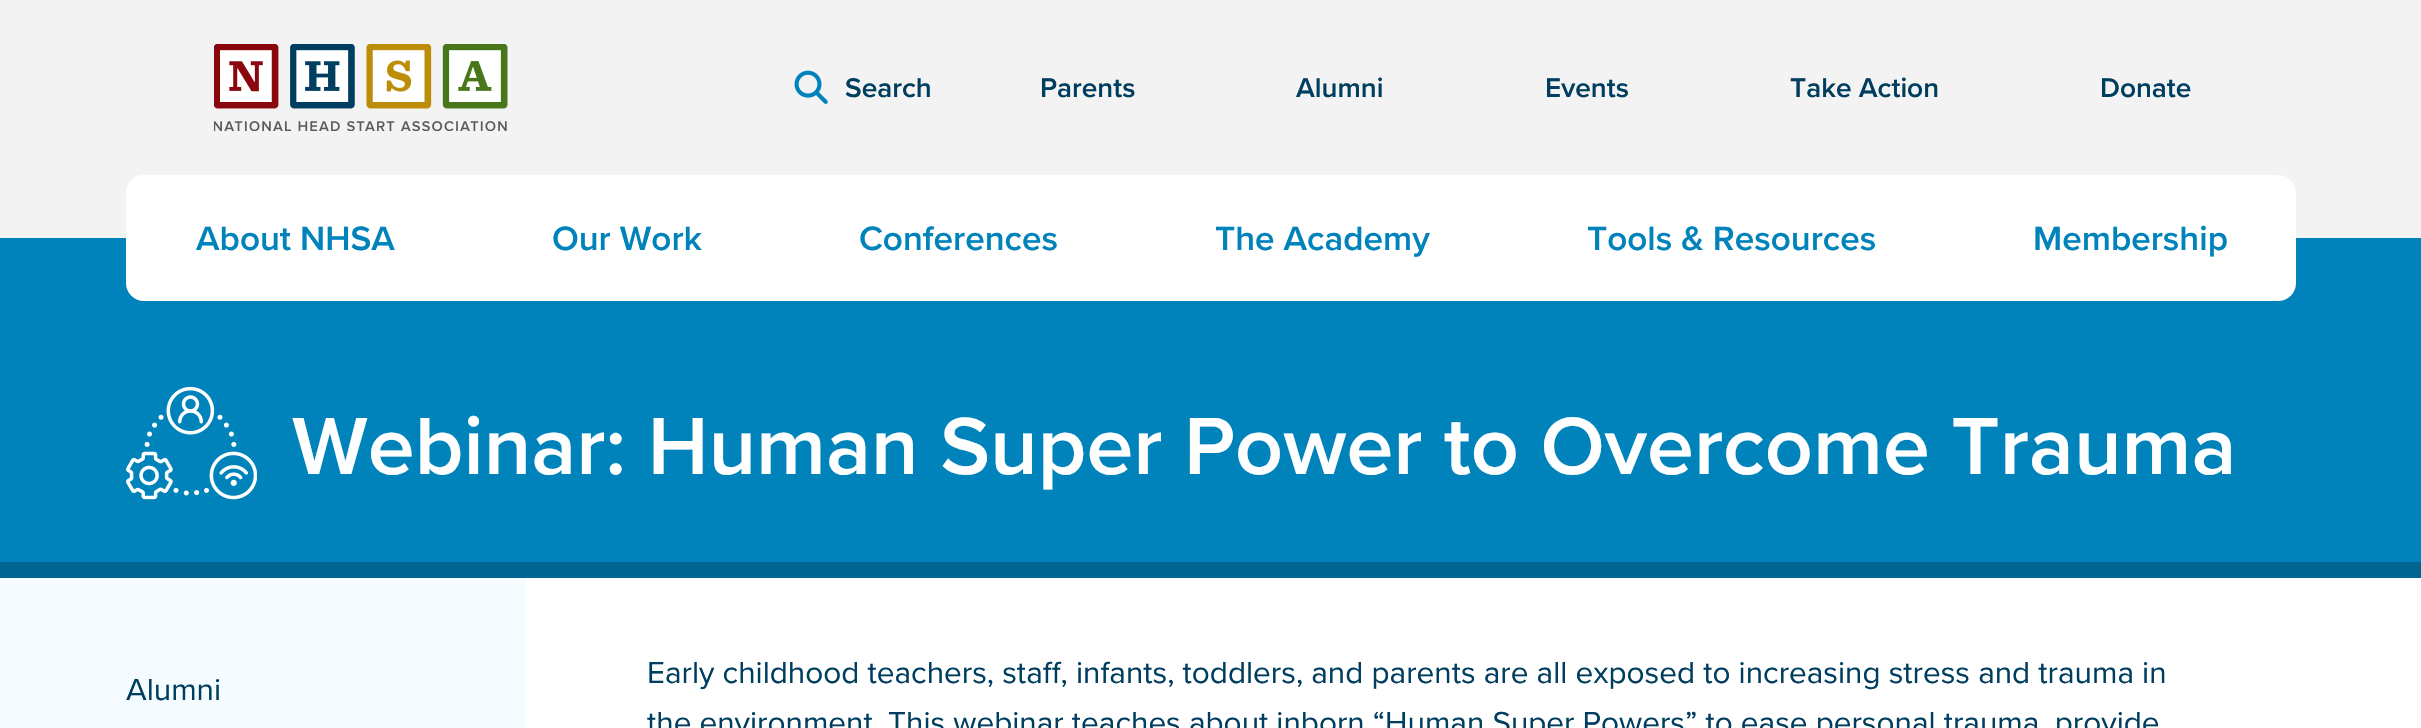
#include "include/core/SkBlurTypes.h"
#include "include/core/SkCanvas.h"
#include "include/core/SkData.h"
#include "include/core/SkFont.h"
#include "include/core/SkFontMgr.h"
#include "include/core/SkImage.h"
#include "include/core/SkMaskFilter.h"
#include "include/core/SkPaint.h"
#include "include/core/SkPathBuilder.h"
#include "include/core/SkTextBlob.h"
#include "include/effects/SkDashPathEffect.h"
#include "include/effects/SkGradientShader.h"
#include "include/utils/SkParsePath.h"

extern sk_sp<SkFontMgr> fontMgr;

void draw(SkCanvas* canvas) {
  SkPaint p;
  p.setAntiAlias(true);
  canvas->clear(SK_ColorWHITE);
  p.setColor(SkColorSetRGB(243, 243, 243));
  canvas->drawRect(SkRect::MakeLTRB(0, 0, 2421, 238), p);
  canvas->drawImageRect(SkImages::DeferredFromEncodedData(SkData::MakeFromFileName("images/1.png")), SkRect::MakeLTRB(214, 44, 508, 131), SkSamplingOptions());
  canvas->drawImageRect(SkImages::DeferredFromEncodedData(SkData::MakeFromFileName("images/2.png")), SkRect::MakeLTRB(794, 70, 828, 104), SkSamplingOptions());
  p.setColor(SkColorSetRGB(0, 131, 187));
  canvas->drawRect(SkRect::MakeLTRB(0, 238, 2421, 562), p);
  p.setColor(SK_ColorWHITE);
  canvas->drawRoundRect(SkRect::MakeLTRB(126, 175, 2296, 301), 18, 18, p);
  p.setColor(SkColorSetRGB(0, 101, 144));
  canvas->drawRect(SkRect::MakeLTRB(0, 562, 2421, 578), p);
  canvas->drawImageRect(SkImages::DeferredFromEncodedData(SkData::MakeFromFileName("images/3.png")), SkRect::MakeLTRB(126, 386, 257, 500), SkSamplingOptions());
  p.setColor(SkColorSetRGB(245, 252, 255));
  canvas->drawRect(SkRect::MakeLTRB(0, 578, 525, 728), p);
  SkFont font1(fontMgr->matchFamilyStyle("Proxima Nova", SkFontStyle(600, SkFontStyle::kNormal_Width, SkFontStyle::kUpright_Slant)), 28);
  font1.setSubpixel(true);
  p.setColor(SkColorSetRGB(0, 62, 96));
  canvas->drawString("Search", 845, 97, font1, p);
  canvas->drawString("Parents", 1040, 97, font1, p);
  canvas->drawString("Alumni", 1296, 97, font1, p);
  canvas->drawString("Events", 1545, 97, font1, p);
  canvas->drawString("Take Action", 1790, 97, font1, p);
  canvas->drawString("Donate", 2100, 97, font1, p);
  SkFont font2(fontMgr->matchFamilyStyle("Proxima Nova", SkFontStyle(600, SkFontStyle::kNormal_Width, SkFontStyle::kUpright_Slant)), 35);
  font2.setSubpixel(true);
  p.setColor(SkColorSetRGB(0, 131, 187));
  canvas->drawString("About NHSA", 196, 250, font2, p);
  canvas->drawString("Our Work", 552, 250, font2, p);
  canvas->drawString("Conferences", 859, 250, font2, p);
  canvas->drawString("The Academy", 1215, 250, font2, p);
  canvas->drawString("Tools & Resources", 1587, 250, font2, p);
  canvas->drawString("Membership", 2033, 250, font2, p);
  SkFont font3(fontMgr->matchFamilyStyle("Proxima Nova", SkFontStyle(600, SkFontStyle::kNormal_Width, SkFontStyle::kUpright_Slant)), 84);
  font3.setSubpixel(true);
  p.setColor(SK_ColorWHITE);
  canvas->drawString("Webinar: Human Super Power to Overcome Trauma", 292, 474, font3, p);
  SkFont font4(fontMgr->matchFamilyStyle("Proxima Nova", SkFontStyle::Normal()), 31.5f);
  font4.setSubpixel(true);
  p.setColor(SkColorSetRGB(0, 62, 96));
  canvas->drawString("Alumni", 126, 700, font4, p);
  canvas->drawString("Early childhood teachers, staff, infants, toddlers, and parents are all exposed to increasing stress and trauma in", 647, 683, font4, p);
  canvas->drawString("the environment. This webinar teaches about inborn “Human Super Powers” to ease personal trauma, provide", 647, 733, font4, p);
}
